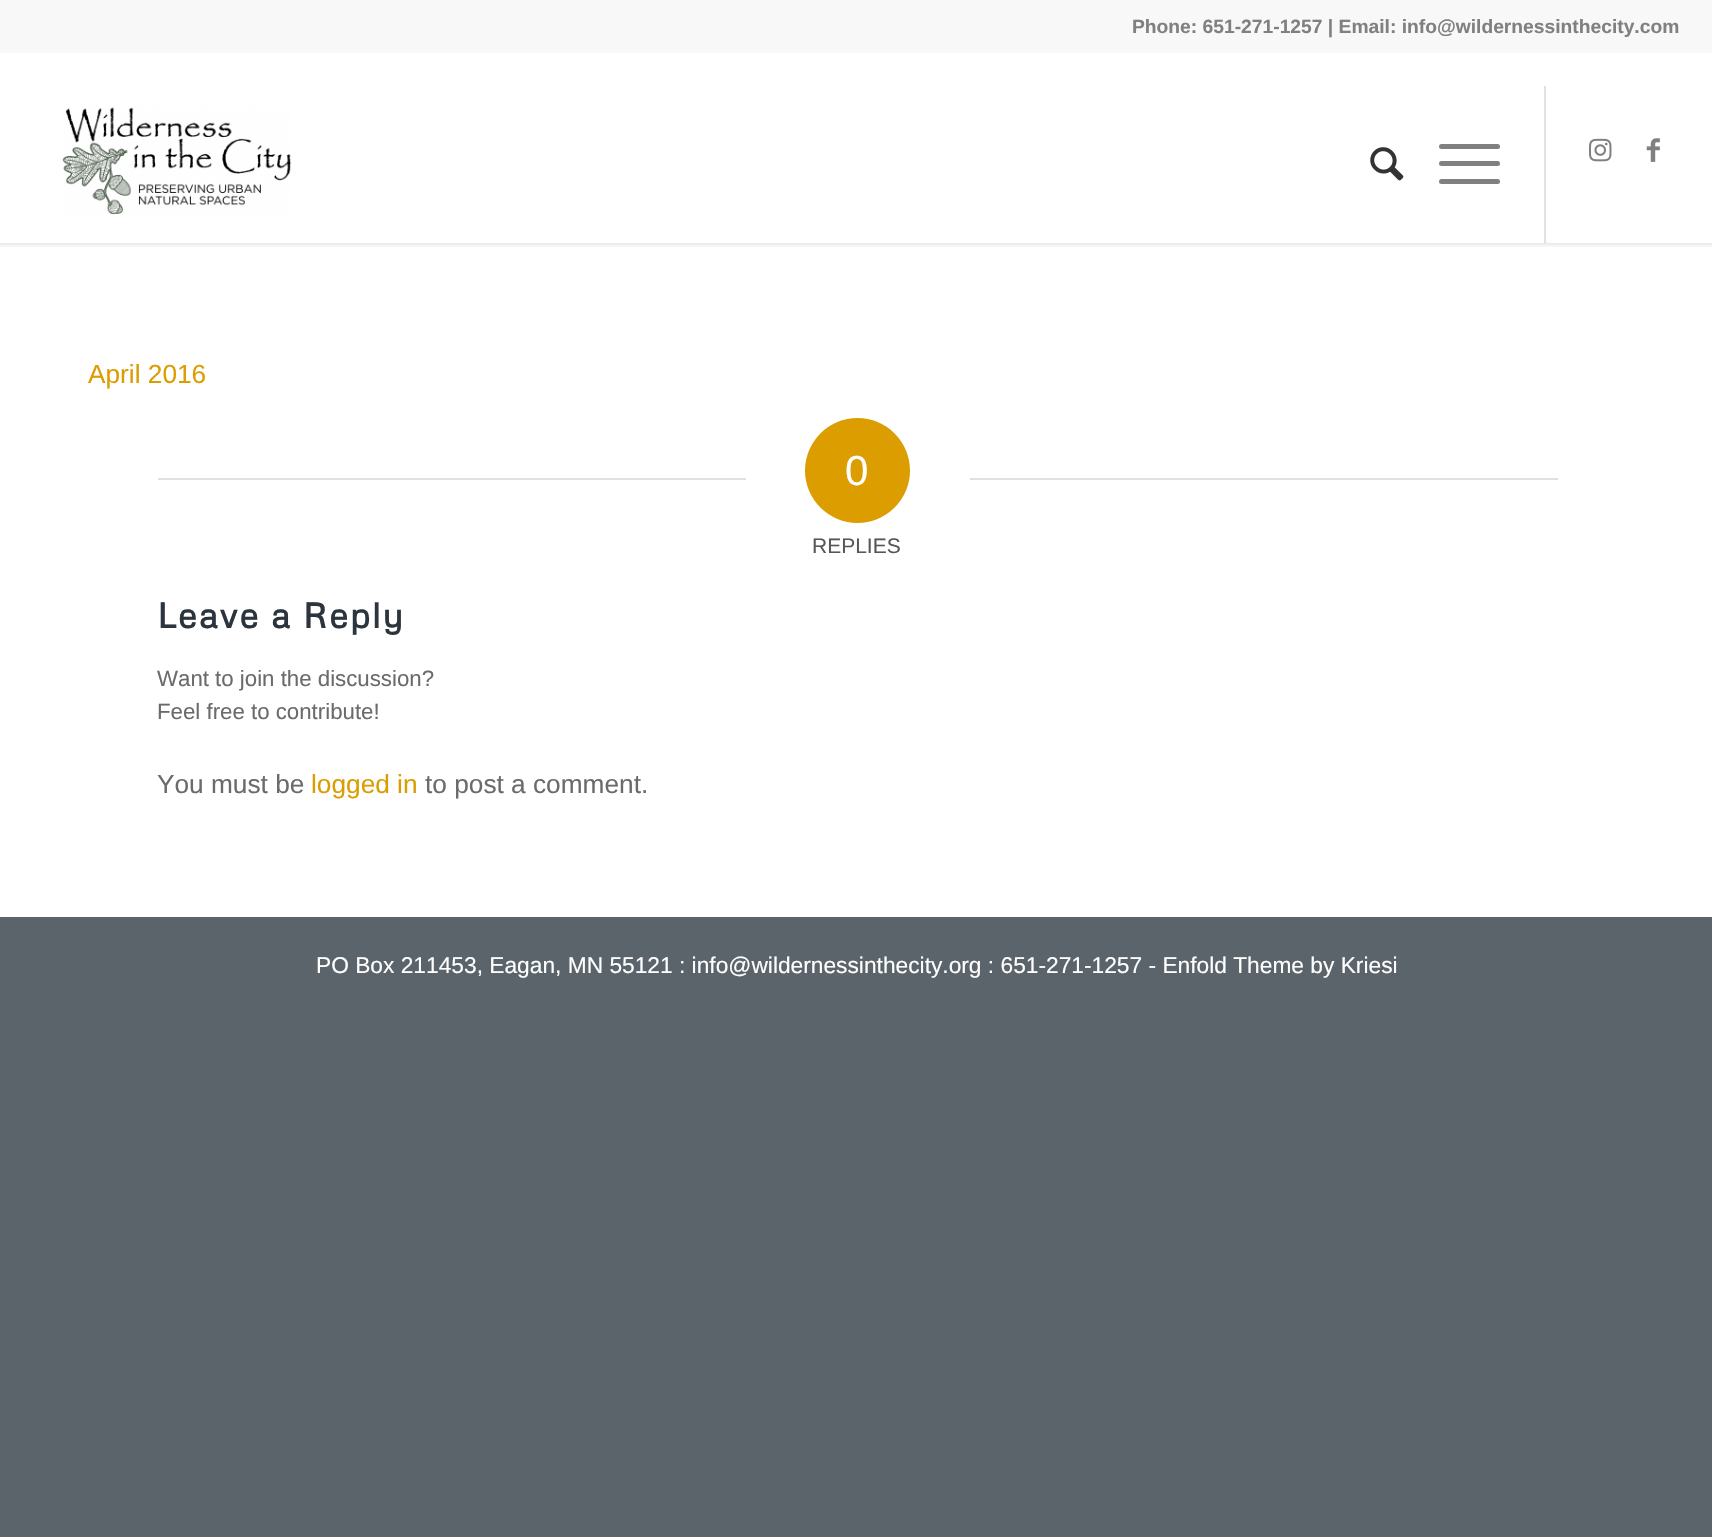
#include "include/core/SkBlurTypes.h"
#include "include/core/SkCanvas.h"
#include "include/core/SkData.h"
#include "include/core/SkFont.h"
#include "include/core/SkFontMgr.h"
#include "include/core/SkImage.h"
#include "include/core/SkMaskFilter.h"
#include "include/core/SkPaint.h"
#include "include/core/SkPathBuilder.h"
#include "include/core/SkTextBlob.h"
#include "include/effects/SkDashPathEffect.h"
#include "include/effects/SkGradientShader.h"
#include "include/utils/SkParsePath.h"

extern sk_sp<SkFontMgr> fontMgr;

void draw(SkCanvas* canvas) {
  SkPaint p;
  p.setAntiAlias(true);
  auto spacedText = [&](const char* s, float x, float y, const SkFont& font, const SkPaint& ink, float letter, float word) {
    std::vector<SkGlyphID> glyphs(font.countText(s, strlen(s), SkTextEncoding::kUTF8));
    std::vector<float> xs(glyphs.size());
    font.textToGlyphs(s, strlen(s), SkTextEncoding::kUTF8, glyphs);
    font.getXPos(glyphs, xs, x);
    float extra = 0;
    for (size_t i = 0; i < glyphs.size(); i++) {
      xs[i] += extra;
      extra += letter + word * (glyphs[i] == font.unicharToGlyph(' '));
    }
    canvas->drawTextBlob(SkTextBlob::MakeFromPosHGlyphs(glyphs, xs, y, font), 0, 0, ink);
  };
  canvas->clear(SkColorSetRGB(91, 100, 107));
  p.setColor(SK_ColorWHITE);
  canvas->drawRect(SkRect::MakeLTRB(0, 53, 1712, 917), p);
  canvas->save();
  canvas->clipRect(SkRect::MakeLTRB(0, 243, 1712, 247));
  p.setColor(SkColorSetARGB(26, 0, 0, 0));
  p.setMaskFilter(SkMaskFilter::MakeBlur(kNormal_SkBlurStyle, 2));
  canvas->drawRect(SkRect::MakeLTRB(-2, -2, 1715, 245), p);
  p.setMaskFilter(nullptr);
  canvas->restore();
  p.setColor(SkColorSetRGB(248, 248, 248));
  canvas->drawRect(SkRect::MakeLTRB(0, 0, 1712, 53), p);
  canvas->drawImageRect(SkImages::DeferredFromEncodedData(SkData::MakeFromFileName("images/1.png")), SkRect::MakeLTRB(62, 107, 292, 215), SkSamplingOptions());
  p.setColor(SkColorSetRGB(225, 225, 225));
  canvas->drawRect(SkRect::MakeLTRB(1544, 86, 1546, 243), p);
  canvas->drawImageRect(SkImages::DeferredFromEncodedData(SkData::MakeFromFileName("images/2.png")), SkRect::MakeLTRB(1370, 147, 1404, 181), SkSamplingOptions());
  p.setColor(SkColorSetRGB(128, 128, 128));
  canvas->drawRoundRect(SkRect::MakeLTRB(1439, 161, 1500, 166), 2.5f, 2.5f, p);
  canvas->drawRoundRect(SkRect::MakeLTRB(1439, 144, 1500, 149), 2.5f, 2.5f, p);
  canvas->drawRoundRect(SkRect::MakeLTRB(1439, 179, 1500, 184), 2.5f, 2.5f, p);
  canvas->drawImageRect(SkImages::DeferredFromEncodedData(SkData::MakeFromFileName("images/3.png")), SkRect::MakeLTRB(1589, 138, 1612, 162), SkSamplingOptions());
  canvas->drawImageRect(SkImages::DeferredFromEncodedData(SkData::MakeFromFileName("images/4.png")), SkRect::MakeLTRB(1646, 138, 1660, 162), SkSamplingOptions());
  p.setColor(SkColorSetRGB(225, 225, 225));
  canvas->drawRect(SkRect::MakeLTRB(158, 478, 746, 480), p);
  p.setColor(SkColorSetRGB(219, 157, 0));
  canvas->drawCircle(857.5f, 470.5f, 52.5f, p);
  p.setColor(SkColorSetRGB(225, 225, 225));
  canvas->drawRect(SkRect::MakeLTRB(970, 478, 1558, 480), p);
  SkFont font1(fontMgr->matchFamilyStyle("Liberation Sans", SkFontStyle::Bold()), 19.25f);
  font1.setSubpixel(true);
  p.setColor(SkColorSetRGB(128, 128, 128));
  canvas->drawString("Phone: 651-271-1257 | Email: info@wildernessinthecity.com", 1132, 33, font1, p);
  SkFont font2(fontMgr->matchFamilyStyle("Liberation Sans", SkFontStyle::Normal()), 26.25f);
  font2.setSubpixel(true);
  p.setColor(SkColorSetRGB(219, 157, 0));
  canvas->drawString("April 2016", 88, 383, font2, p);
  SkFont font3(fontMgr->matchFamilyStyle("Liberation Sans", SkFontStyle::Normal()), 42);
  font3.setSubpixel(true);
  p.setColor(SK_ColorWHITE);
  canvas->drawString("0", 845, 485, font3, p);
  SkFont font4(fontMgr->matchFamilyStyle("Liberation Sans", SkFontStyle::Normal()), 21);
  font4.setSubpixel(true);
  p.setColor(SkColorSetRGB(87, 87, 87));
  canvas->drawString("REPLIES", 812, 553, font4, p);
  SkFont font5(fontMgr->matchFamilyStyle("Metrophobic", SkFontStyle::Bold()), 35);
  font5.setSubpixel(true);
  p.setColor(SkColorSetRGB(44, 53, 61));
  spacedText("Leave a Reply", 157, 628, font5, p, 1.75f, 0);
  SkFont font6(fontMgr->matchFamilyStyle("Liberation Sans", SkFontStyle::Normal()), 22.25f);
  font6.setSubpixel(true);
  p.setColor(SkColorSetRGB(107, 107, 107));
  canvas->drawString("Want to join the discussion?", 157, 686, font6, p);
  canvas->drawString("Feel free to contribute!", 157, 719, font6, p);
  canvas->drawString("You must be", 157, 793, font2, p);
  p.setColor(SkColorSetRGB(219, 157, 0));
  canvas->drawString("logged in", 311, 793, font2, p);
  p.setColor(SkColorSetRGB(107, 107, 107));
  canvas->drawString("to post a comment.", 425, 793, font2, p);
  SkFont font7(fontMgr->matchFamilyStyle("Liberation Sans", SkFontStyle::Normal()), 22.75f);
  font7.setSubpixel(true);
  p.setColor(SK_ColorWHITE);
  canvas->drawString("PO Box 211453, Eagan, MN 55121 : info@wildernessinthecity.org : 651-271-1257 - Enfold Theme by Kriesi", 316, 973, font7, p);
}
